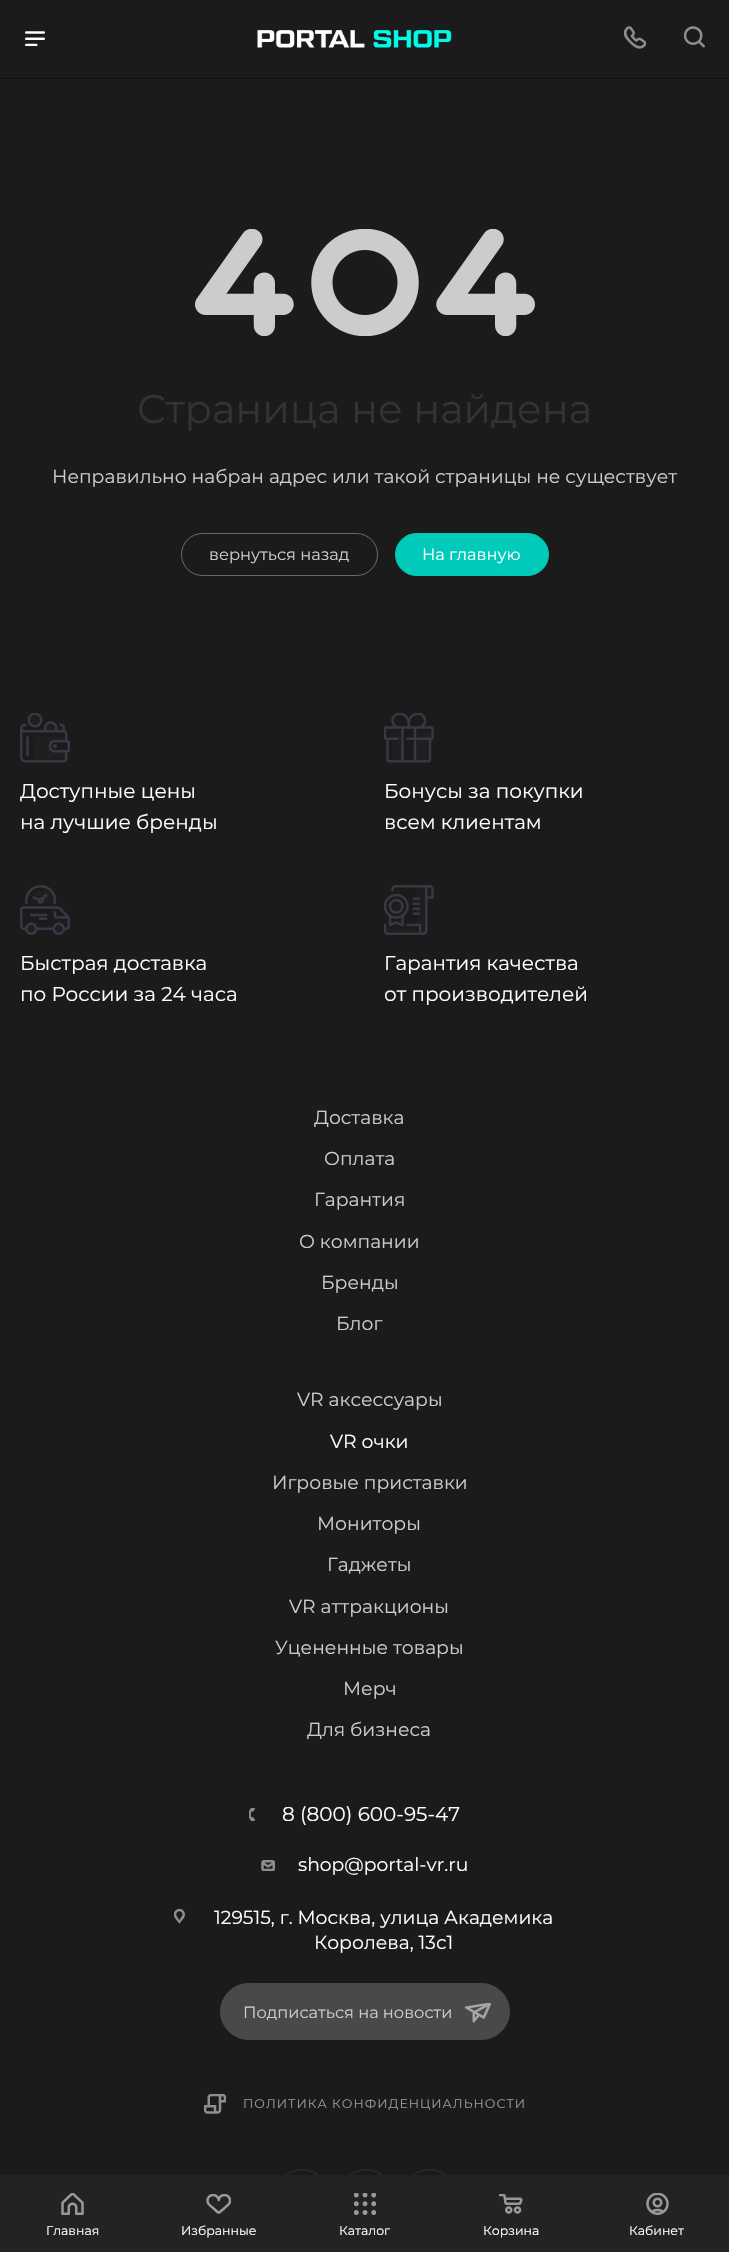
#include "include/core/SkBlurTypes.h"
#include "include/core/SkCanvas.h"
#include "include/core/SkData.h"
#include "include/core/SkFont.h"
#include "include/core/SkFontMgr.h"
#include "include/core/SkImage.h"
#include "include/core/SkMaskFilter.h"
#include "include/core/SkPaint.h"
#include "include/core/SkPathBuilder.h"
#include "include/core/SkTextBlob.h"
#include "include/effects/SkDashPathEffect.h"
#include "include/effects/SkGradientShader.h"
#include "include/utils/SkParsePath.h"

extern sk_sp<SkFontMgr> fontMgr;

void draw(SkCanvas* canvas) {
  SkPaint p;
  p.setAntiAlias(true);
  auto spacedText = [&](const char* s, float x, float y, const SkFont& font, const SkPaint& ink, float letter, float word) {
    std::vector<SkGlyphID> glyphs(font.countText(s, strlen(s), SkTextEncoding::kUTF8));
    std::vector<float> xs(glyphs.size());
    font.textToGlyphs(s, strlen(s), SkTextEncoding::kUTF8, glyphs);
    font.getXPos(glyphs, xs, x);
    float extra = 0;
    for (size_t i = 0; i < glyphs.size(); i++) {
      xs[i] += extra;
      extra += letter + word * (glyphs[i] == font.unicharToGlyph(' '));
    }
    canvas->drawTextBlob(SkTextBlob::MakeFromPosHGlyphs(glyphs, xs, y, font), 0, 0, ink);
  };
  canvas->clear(SkColorSetRGB(27, 27, 27));
  p.setColor(SkColorSetRGB(18, 18, 18));
  canvas->drawRect(SkRect::MakeLTRB(0, 78, 729, 79), p);
  canvas->drawImageRect(SkImages::DeferredFromEncodedData(SkData::MakeFromFileName("images/1.png")), SkRect::MakeLTRB(25, 31, 45, 46), SkSamplingOptions());
  canvas->drawImageRect(SkImages::DeferredFromEncodedData(SkData::MakeFromFileName("images/2.png")), SkRect::MakeLTRB(257, 30, 452, 48), SkSamplingOptions());
  canvas->drawImageRect(SkImages::DeferredFromEncodedData(SkData::MakeFromFileName("images/3.png")), SkRect::MakeLTRB(624, 26, 646, 49), SkSamplingOptions());
  canvas->drawImageRect(SkImages::DeferredFromEncodedData(SkData::MakeFromFileName("images/4.png")), SkRect::MakeLTRB(684, 26, 705, 48), SkSamplingOptions());
  canvas->drawImageRect(SkImages::DeferredFromEncodedData(SkData::MakeFromFileName("images/5.png")), SkRect::MakeLTRB(195, 229, 535, 336), SkSamplingOptions());
  p.setStyle(SkPaint::kStroke_Style);
  p.setStrokeWidth(1);
  p.setColor(SkColorSetRGB(107, 107, 107));
  canvas->drawRoundRect(SkRect::MakeLTRB(181.5f, 533.5f, 377.5f, 575.5f), 21, 21, p);
  p.setStyle(SkPaint::kFill_Style);
  p.setColor(SkColorSetRGB(0, 202, 185));
  canvas->drawRoundRect(SkRect::MakeLTRB(395.5f, 533.5f, 548.5f, 575.5f), 21, 21, p);
  p.setStyle(SkPaint::kStroke_Style);
  canvas->drawRoundRect(SkRect::MakeLTRB(395.5f, 533.5f, 548.5f, 575.5f), 21, 21, p);
  canvas->drawImageRect(SkImages::DeferredFromEncodedData(SkData::MakeFromFileName("images/6.png")), SkRect::MakeLTRB(20, 713, 70, 763), SkSamplingOptions());
  canvas->drawImageRect(SkImages::DeferredFromEncodedData(SkData::MakeFromFileName("images/7.png")), SkRect::MakeLTRB(384, 713, 434, 763), SkSamplingOptions());
  canvas->drawImageRect(SkImages::DeferredFromEncodedData(SkData::MakeFromFileName("images/8.png")), SkRect::MakeLTRB(20, 885, 70, 935), SkSamplingOptions());
  canvas->drawImageRect(SkImages::DeferredFromEncodedData(SkData::MakeFromFileName("images/9.png")), SkRect::MakeLTRB(384, 885, 434, 935), SkSamplingOptions());
  canvas->drawImageRect(SkImages::DeferredFromEncodedData(SkData::MakeFromFileName("images/10.png")), SkRect::MakeLTRB(249, 1808, 255, 1821), SkSamplingOptions());
  canvas->drawImageRect(SkImages::DeferredFromEncodedData(SkData::MakeFromFileName("images/11.png")), SkRect::MakeLTRB(261, 1860, 275, 1871), SkSamplingOptions());
  canvas->drawImageRect(SkImages::DeferredFromEncodedData(SkData::MakeFromFileName("images/12.png")), SkRect::MakeLTRB(174, 1909, 185, 1924), SkSamplingOptions());
  p.setStyle(SkPaint::kFill_Style);
  p.setColor(SkColorSetRGB(73, 73, 73));
  canvas->drawRoundRect(SkRect::MakeLTRB(220.5f, 1983.5f, 509.5f, 2039.5f), 28, 28, p);
  p.setStyle(SkPaint::kStroke_Style);
  canvas->drawRoundRect(SkRect::MakeLTRB(220.5f, 1983.5f, 509.5f, 2039.5f), 28, 28, p);
  canvas->drawImageRect(SkImages::DeferredFromEncodedData(SkData::MakeFromFileName("images/13.png")), SkRect::MakeLTRB(465, 2003, 491, 2023), SkSamplingOptions());
  canvas->drawImageRect(SkImages::DeferredFromEncodedData(SkData::MakeFromFileName("images/14.png")), SkRect::MakeLTRB(204, 2094, 226, 2114), SkSamplingOptions());
  p.setColor(SkColorSetRGB(50, 50, 50));
  canvas->drawCircle(302, 2196, 26.5f, p);
  canvas->drawCircle(366, 2196, 26.5f, p);
  canvas->drawRoundRect(SkRect::MakeLTRB(403.5f, 2169.5f, 455.5f, 2222.5f), 26, 26, p);
  p.setStyle(SkPaint::kFill_Style);
  p.setColor(SkColorSetRGB(35, 35, 35));
  canvas->drawRect(SkRect::MakeLTRB(0, 2175, 729, 2252), p);
  canvas->drawImageRect(SkImages::DeferredFromEncodedData(SkData::MakeFromFileName("images/15.png")), SkRect::MakeLTRB(61, 2193, 84, 2215), SkSamplingOptions());
  canvas->drawImageRect(SkImages::DeferredFromEncodedData(SkData::MakeFromFileName("images/16.png")), SkRect::MakeLTRB(206, 2194, 231, 2214), SkSamplingOptions());
  canvas->drawImageRect(SkImages::DeferredFromEncodedData(SkData::MakeFromFileName("images/17.png")), SkRect::MakeLTRB(354, 2193, 376, 2215), SkSamplingOptions());
  canvas->drawImageRect(SkImages::DeferredFromEncodedData(SkData::MakeFromFileName("images/18.png")), SkRect::MakeLTRB(499, 2194, 523, 2214), SkSamplingOptions());
  canvas->drawImageRect(SkImages::DeferredFromEncodedData(SkData::MakeFromFileName("images/19.png")), SkRect::MakeLTRB(646, 2193, 669, 2215), SkSamplingOptions());
  SkFont font1(fontMgr->matchFamilyStyle("Montserrat", SkFontStyle::Normal()), 40);
  font1.setSubpixel(true);
  p.setColor(SkColorSetRGB(51, 51, 51));
  canvas->drawString("Страница не найдена", 137, 423, font1, p);
  SkFont font2(fontMgr->matchFamilyStyle("Montserrat", SkFontStyle::Normal()), 18.75f);
  font2.setSubpixel(true);
  p.setColor(SkColorSetRGB(204, 204, 204));
  canvas->drawString("Неправильно набран адрес или такой страницы не существует", 52, 483, font2, p);
  SkFont font3(fontMgr->matchFamilyStyle("Montserrat", SkFontStyle::Normal()), 16.25f);
  font3.setSubpixel(true);
  canvas->drawString("вернуться назад", 209, 560, font3, p);
  p.setColor(SK_ColorWHITE);
  canvas->drawString("На главную", 422, 560, font3, p);
  SkFont font4(fontMgr->matchFamilyStyle("Montserrat", SkFontStyle::Normal()), 20);
  font4.setSubpixel(true);
  canvas->drawString("Доступные цены", 20, 798, font4, p);
  canvas->drawString("на лучшие бренды", 20, 829, font4, p);
  canvas->drawString("Бонусы за покупки", 384, 798, font4, p);
  canvas->drawString("всем клиентам", 384, 829, font4, p);
  canvas->drawString("Быстрая доставка", 20, 970, font4, p);
  canvas->drawString("по России за 24 часа", 20, 1001, font4, p);
  canvas->drawString("Гарантия качества", 384, 970, font4, p);
  canvas->drawString("от производителей", 384, 1001, font4, p);
  p.setColor(SkColorSetRGB(204, 204, 204));
  canvas->drawString("Доставка", 314, 1124, font2, p);
  canvas->drawString("Оплата", 324, 1165, font2, p);
  canvas->drawString("Гарантия", 314, 1206, font2, p);
  canvas->drawString("О компании", 299, 1248, font2, p);
  canvas->drawString("Бренды", 321, 1289, font2, p);
  canvas->drawString("Блог", 336, 1330, font2, p);
  canvas->drawString("VR аксессуары", 297, 1406, font2, p);
  p.setColor(SK_ColorWHITE);
  canvas->drawString("VR очки", 330, 1448, font2, p);
  p.setColor(SkColorSetRGB(204, 204, 204));
  canvas->drawString("Игровые приставки", 272, 1489, font2, p);
  canvas->drawString("Мониторы", 317, 1530, font2, p);
  canvas->drawString("Гаджеты", 327, 1571, font2, p);
  canvas->drawString("VR аттракционы", 289, 1613, font2, p);
  canvas->drawString("Уцененные товары", 275, 1654, font2, p);
  canvas->drawString("Мерч", 343, 1695, font2, p);
  canvas->drawString("Для бизнеса", 307, 1736, font2, p);
  p.setColor(SK_ColorWHITE);
  canvas->drawString("8 (800) 600-95-47", 282, 1821, font4, p);
  canvas->drawString("shop@portal-vr.ru", 298, 1871, font2, p);
  canvas->drawString("129515, г. Москва, улица Академика", 214, 1924, font2, p);
  canvas->drawString("Королева, 13с1", 314, 1949, font2, p);
  p.setColor(SkColorSetRGB(204, 204, 204));
  canvas->drawString("Подписаться на новости", 243, 2018, font3, p);
  SkFont font5(fontMgr->matchFamilyStyle("Montserrat", SkFontStyle::Normal()), 12.5f);
  font5.setSubpixel(true);
  p.setColor(SkColorSetRGB(153, 153, 153));
  spacedText("ПОЛИТИКА КОНФИДЕНЦИАЛЬНОСТИ", 243, 2108, font5, p, 1, 0);
  p.setColor(SK_ColorWHITE);
  canvas->drawString("Главная", 46, 2235, font5, p);
  canvas->drawString("Избранные", 181, 2235, font5, p);
  canvas->drawString("Каталог", 339, 2235, font5, p);
  canvas->drawString("Корзина", 483, 2235, font5, p);
  canvas->drawString("Кабинет", 629, 2235, font5, p);
}
